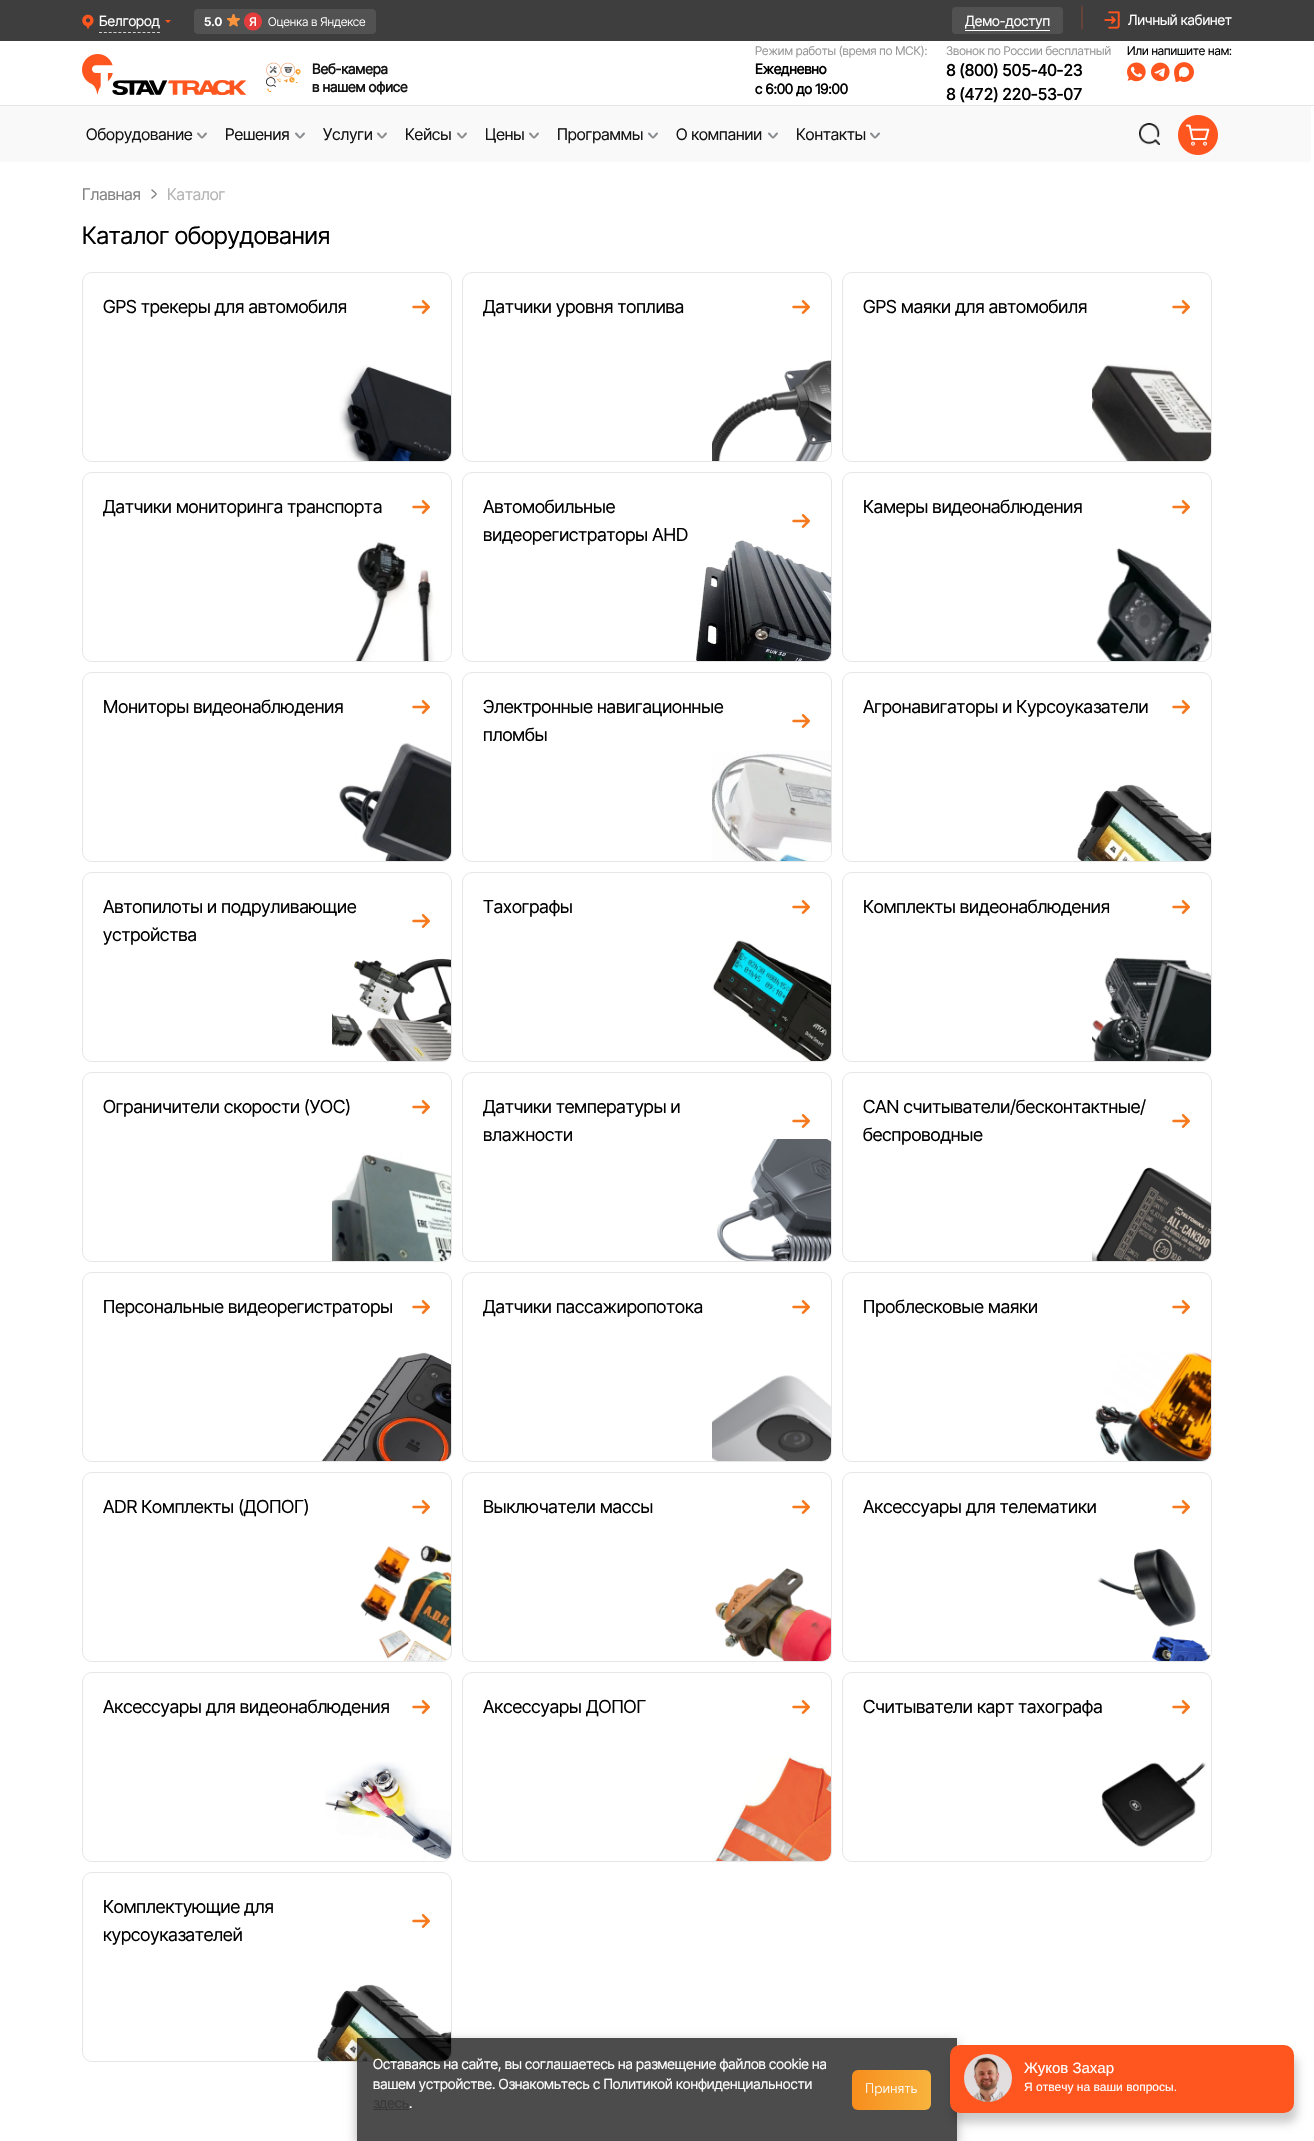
#include "include/core/SkBlurTypes.h"
#include "include/core/SkCanvas.h"
#include "include/core/SkData.h"
#include "include/core/SkFont.h"
#include "include/core/SkFontMgr.h"
#include "include/core/SkImage.h"
#include "include/core/SkMaskFilter.h"
#include "include/core/SkPaint.h"
#include "include/core/SkPathBuilder.h"
#include "include/core/SkTextBlob.h"
#include "include/effects/SkDashPathEffect.h"
#include "include/effects/SkGradientShader.h"
#include "include/utils/SkParsePath.h"

extern sk_sp<SkFontMgr> fontMgr;

void draw(SkCanvas* canvas) {
  SkPaint p;
  p.setAntiAlias(true);
  canvas->clear(SK_ColorWHITE);
  p.setColor(SkColorSetRGB(62, 62, 62));
  canvas->drawRect(SkRect::MakeLTRB(0, 0, 1314, 41), p);
  canvas->drawImageRect(SkImages::DeferredFromEncodedData(SkData::MakeFromFileName("images/1.png")), SkRect::MakeLTRB(82, 14, 94, 30), SkSamplingOptions());
  p.setStyle(SkPaint::kStroke_Style);
  p.setStrokeWidth(1);
  p.setColor(SkColorSetRGB(210, 210, 210));
  p.setPathEffect(SkDashPathEffect::Make({{3, 1.83f}}, 0));
  canvas->drawPath(SkPathBuilder().moveTo(99, 32.5f).lineTo(160, 32.5f).detach(), p);
  p.setPathEffect(nullptr);
  p.setStyle(SkPaint::kFill_Style);
  p.setColor(SkColorSetRGB(255, 85, 31));
  canvas->drawPath(SkPathBuilder().moveTo(168, 23).lineTo(165, 20).lineTo(171, 20).close().detach(), p);
  canvas->drawImageRect(SkImages::DeferredFromEncodedData(SkData::MakeFromFileName("images/2.png")), SkRect::MakeLTRB(194, 9, 376, 34), SkSamplingOptions());
  p.setColor(SkColorSetRGB(81, 81, 81));
  canvas->drawRoundRect(SkRect::MakeLTRB(952, 7, 1063, 34), 4, 4, p);
  p.setColor(SK_ColorWHITE);
  canvas->drawRect(SkRect::MakeLTRB(965, 30, 1050, 31), p);
  p.setStyle(SkPaint::kStroke_Style);
  p.setStrokeWidth(2);
  p.setStrokeCap(SkPaint::kRound_Cap);
  p.setColor(SkColorSetRGB(101, 67, 56));
  canvas->drawPath(SkPathBuilder().moveTo(1082, 6.5f).lineTo(1082, 28.5f).detach(), p);
  canvas->drawImageRect(SkImages::DeferredFromEncodedData(SkData::MakeFromFileName("images/3.png")), SkRect::MakeLTRB(1104, 11, 1120, 29), SkSamplingOptions());
  p.setStyle(SkPaint::kFill_Style);
  p.setColor(SkColorSetRGB(230, 230, 230));
  canvas->drawRect(SkRect::MakeLTRB(0, 105, 1314, 106), p);
  canvas->drawImageRect(SkImages::DeferredFromEncodedData(SkData::MakeFromFileName("images/4.png")), SkRect::MakeLTRB(82, 54, 246, 95), SkSamplingOptions());
  canvas->drawImageRect(SkImages::DeferredFromEncodedData(SkData::MakeFromFileName("images/5.png")), SkRect::MakeLTRB(266, 62, 301, 93), SkSamplingOptions());
  canvas->drawImageRect(SkImages::DeferredFromEncodedData(SkData::MakeFromFileName("images/6.png")), SkRect::MakeLTRB(1127, 62, 1146, 82), SkSamplingOptions());
  canvas->drawImageRect(SkImages::DeferredFromEncodedData(SkData::MakeFromFileName("images/7.png")), SkRect::MakeLTRB(1151, 62, 1170, 82), SkSamplingOptions());
  canvas->drawImageRect(SkImages::DeferredFromEncodedData(SkData::MakeFromFileName("images/8.png")), SkRect::MakeLTRB(1174, 62, 1194, 82), SkSamplingOptions());
  p.setColor(SkColorSetRGB(249, 249, 249));
  canvas->drawRect(SkRect::MakeLTRB(0, 106, 1311, 162), p);
  p.setStyle(SkPaint::kStroke_Style);
  p.setColor(SkColorSetRGB(137, 140, 143));
  canvas->drawPath(SkPathBuilder().moveTo(206, 133.5f).cubicTo(201, 139, 203, 139, 198, 133.5f).detach(), p);
  canvas->drawPath(SkPathBuilder().moveTo(304, 133.5f).cubicTo(299, 139, 301, 139, 296, 133.5f).detach(), p);
  canvas->drawPath(SkPathBuilder().moveTo(386, 133.5f).cubicTo(381, 139, 383, 139, 378, 133.5f).detach(), p);
  canvas->drawPath(SkPathBuilder().moveTo(466, 133.5f).cubicTo(461, 139, 463, 139, 458, 133.5f).detach(), p);
  canvas->drawPath(SkPathBuilder().moveTo(538, 133.5f).cubicTo(533, 139, 535, 139, 530, 133.5f).detach(), p);
  canvas->drawPath(SkPathBuilder().moveTo(657, 133.5f).cubicTo(652, 139, 654, 139, 649, 133.5f).detach(), p);
  canvas->drawPath(SkPathBuilder().moveTo(777, 133.5f).cubicTo(772, 139, 774, 139, 769, 133.5f).detach(), p);
  canvas->drawPath(SkPathBuilder().moveTo(879, 133.5f).cubicTo(874, 139, 876, 139, 871, 133.5f).detach(), p);
  canvas->drawImageRect(SkImages::DeferredFromEncodedData(SkData::MakeFromFileName("images/9.png")), SkRect::MakeLTRB(1139, 123, 1160, 145), SkSamplingOptions());
  canvas->drawImageRect(SkImages::DeferredFromEncodedData(SkData::MakeFromFileName("images/10.png")), SkRect::MakeLTRB(1178, 115, 1218, 155), SkSamplingOptions());
  p.setStrokeWidth(1.5f);
  p.setColor(SkColorSetRGB(130, 130, 130));
  canvas->drawPath(SkPathBuilder().moveTo(152, 190).cubicTo(157.5f, 195, 157.5f, 193, 152, 198).detach(), p);
  p.setStrokeWidth(1);
  p.setStrokeCap(SkPaint::kButt_Cap);
  p.setColor(SkColorSetRGB(230, 230, 230));
  canvas->drawRoundRect(SkRect::MakeLTRB(82.5f, 272.5f, 451.5f, 461.5f), 9.5f, 9.5f, p);
  canvas->drawImageRect(SkImages::DeferredFromEncodedData(SkData::MakeFromFileName("images/11.png")), SkRect::MakeLTRB(412, 300, 430, 314), SkSamplingOptions());
  canvas->drawImageRect(SkImages::DeferredFromEncodedData(SkData::MakeFromFileName("images/12.png")), SkRect::MakeLTRB(339, 365, 451, 461), SkSamplingOptions());
  canvas->drawRoundRect(SkRect::MakeLTRB(462.5f, 272.5f, 831.5f, 461.5f), 9.5f, 9.5f, p);
  canvas->drawImageRect(SkImages::DeferredFromEncodedData(SkData::MakeFromFileName("images/11.png")), SkRect::MakeLTRB(792, 300, 810, 314), SkSamplingOptions());
  canvas->drawImageRect(SkImages::DeferredFromEncodedData(SkData::MakeFromFileName("images/13.png")), SkRect::MakeLTRB(712, 360, 831, 461), SkSamplingOptions());
  canvas->drawRoundRect(SkRect::MakeLTRB(842.5f, 272.5f, 1211.5f, 461.5f), 9.5f, 9.5f, p);
  canvas->drawImageRect(SkImages::DeferredFromEncodedData(SkData::MakeFromFileName("images/11.png")), SkRect::MakeLTRB(1172, 300, 1190, 314), SkSamplingOptions());
  canvas->drawImageRect(SkImages::DeferredFromEncodedData(SkData::MakeFromFileName("images/14.png")), SkRect::MakeLTRB(1092, 364, 1211, 461), SkSamplingOptions());
  canvas->drawRoundRect(SkRect::MakeLTRB(82.5f, 472.5f, 451.5f, 661.5f), 9.5f, 9.5f, p);
  canvas->drawImageRect(SkImages::DeferredFromEncodedData(SkData::MakeFromFileName("images/11.png")), SkRect::MakeLTRB(412, 500, 430, 514), SkSamplingOptions());
  canvas->drawImageRect(SkImages::DeferredFromEncodedData(SkData::MakeFromFileName("images/15.png")), SkRect::MakeLTRB(354, 542, 451, 661), SkSamplingOptions());
  canvas->drawRoundRect(SkRect::MakeLTRB(462.5f, 472.5f, 831.5f, 661.5f), 9.5f, 9.5f, p);
  canvas->drawImageRect(SkImages::DeferredFromEncodedData(SkData::MakeFromFileName("images/11.png")), SkRect::MakeLTRB(792, 514, 810, 528), SkSamplingOptions());
  canvas->drawImageRect(SkImages::DeferredFromEncodedData(SkData::MakeFromFileName("images/16.png")), SkRect::MakeLTRB(696, 540, 831, 661), SkSamplingOptions());
  canvas->drawRoundRect(SkRect::MakeLTRB(842.5f, 472.5f, 1211.5f, 661.5f), 9.5f, 9.5f, p);
  canvas->drawImageRect(SkImages::DeferredFromEncodedData(SkData::MakeFromFileName("images/11.png")), SkRect::MakeLTRB(1172, 500, 1190, 514), SkSamplingOptions());
  canvas->drawImageRect(SkImages::DeferredFromEncodedData(SkData::MakeFromFileName("images/17.png")), SkRect::MakeLTRB(1096, 548, 1211, 661), SkSamplingOptions());
  canvas->drawRoundRect(SkRect::MakeLTRB(82.5f, 672.5f, 451.5f, 861.5f), 9.5f, 9.5f, p);
  canvas->drawImageRect(SkImages::DeferredFromEncodedData(SkData::MakeFromFileName("images/11.png")), SkRect::MakeLTRB(412, 700, 430, 714), SkSamplingOptions());
  canvas->drawImageRect(SkImages::DeferredFromEncodedData(SkData::MakeFromFileName("images/18.png")), SkRect::MakeLTRB(339, 743, 451, 861), SkSamplingOptions());
  canvas->drawRoundRect(SkRect::MakeLTRB(462.5f, 672.5f, 831.5f, 861.5f), 9.5f, 9.5f, p);
  canvas->drawImageRect(SkImages::DeferredFromEncodedData(SkData::MakeFromFileName("images/11.png")), SkRect::MakeLTRB(792, 714, 810, 728), SkSamplingOptions());
  canvas->drawImageRect(SkImages::DeferredFromEncodedData(SkData::MakeFromFileName("images/19.png")), SkRect::MakeLTRB(712, 751, 831, 861), SkSamplingOptions());
  canvas->drawRoundRect(SkRect::MakeLTRB(842.5f, 672.5f, 1211.5f, 861.5f), 9.5f, 9.5f, p);
  canvas->drawImageRect(SkImages::DeferredFromEncodedData(SkData::MakeFromFileName("images/11.png")), SkRect::MakeLTRB(1172, 700, 1190, 714), SkSamplingOptions());
  canvas->drawImageRect(SkImages::DeferredFromEncodedData(SkData::MakeFromFileName("images/20.png")), SkRect::MakeLTRB(1077, 784, 1211, 861), SkSamplingOptions());
  canvas->drawRoundRect(SkRect::MakeLTRB(82.5f, 872.5f, 451.5f, 1061.5f), 9.5f, 9.5f, p);
  canvas->drawImageRect(SkImages::DeferredFromEncodedData(SkData::MakeFromFileName("images/11.png")), SkRect::MakeLTRB(412, 914, 430, 928), SkSamplingOptions());
  canvas->drawImageRect(SkImages::DeferredFromEncodedData(SkData::MakeFromFileName("images/21.png")), SkRect::MakeLTRB(332, 958, 451, 1061), SkSamplingOptions());
  canvas->drawRoundRect(SkRect::MakeLTRB(462.5f, 872.5f, 831.5f, 1061.5f), 9.5f, 9.5f, p);
  canvas->drawImageRect(SkImages::DeferredFromEncodedData(SkData::MakeFromFileName("images/11.png")), SkRect::MakeLTRB(792, 900, 810, 914), SkSamplingOptions());
  canvas->drawImageRect(SkImages::DeferredFromEncodedData(SkData::MakeFromFileName("images/22.png")), SkRect::MakeLTRB(712, 940, 831, 1061), SkSamplingOptions());
  canvas->drawRoundRect(SkRect::MakeLTRB(842.5f, 872.5f, 1211.5f, 1061.5f), 9.5f, 9.5f, p);
  canvas->drawImageRect(SkImages::DeferredFromEncodedData(SkData::MakeFromFileName("images/11.png")), SkRect::MakeLTRB(1172, 900, 1190, 914), SkSamplingOptions());
  canvas->drawImageRect(SkImages::DeferredFromEncodedData(SkData::MakeFromFileName("images/23.png")), SkRect::MakeLTRB(1092, 957, 1211, 1061), SkSamplingOptions());
  canvas->drawRoundRect(SkRect::MakeLTRB(82.5f, 1072.5f, 451.5f, 1261.5f), 9.5f, 9.5f, p);
  canvas->drawImageRect(SkImages::DeferredFromEncodedData(SkData::MakeFromFileName("images/11.png")), SkRect::MakeLTRB(412, 1100, 430, 1114), SkSamplingOptions());
  canvas->drawImageRect(SkImages::DeferredFromEncodedData(SkData::MakeFromFileName("images/24.png")), SkRect::MakeLTRB(332, 1154, 451, 1261), SkSamplingOptions());
  canvas->drawRoundRect(SkRect::MakeLTRB(462.5f, 1072.5f, 831.5f, 1261.5f), 9.5f, 9.5f, p);
  canvas->drawImageRect(SkImages::DeferredFromEncodedData(SkData::MakeFromFileName("images/11.png")), SkRect::MakeLTRB(792, 1114, 810, 1128), SkSamplingOptions());
  canvas->drawImageRect(SkImages::DeferredFromEncodedData(SkData::MakeFromFileName("images/25.png")), SkRect::MakeLTRB(717, 1139, 831, 1261), SkSamplingOptions());
  canvas->drawRoundRect(SkRect::MakeLTRB(842.5f, 1072.5f, 1211.5f, 1261.5f), 9.5f, 9.5f, p);
  canvas->drawImageRect(SkImages::DeferredFromEncodedData(SkData::MakeFromFileName("images/11.png")), SkRect::MakeLTRB(1172, 1114, 1190, 1128), SkSamplingOptions());
  canvas->drawImageRect(SkImages::DeferredFromEncodedData(SkData::MakeFromFileName("images/26.png")), SkRect::MakeLTRB(1092, 1167, 1211, 1261), SkSamplingOptions());
  canvas->drawRoundRect(SkRect::MakeLTRB(82.5f, 1272.5f, 451.5f, 1461.5f), 9.5f, 9.5f, p);
  canvas->drawImageRect(SkImages::DeferredFromEncodedData(SkData::MakeFromFileName("images/11.png")), SkRect::MakeLTRB(412, 1300, 430, 1314), SkSamplingOptions());
  canvas->drawImageRect(SkImages::DeferredFromEncodedData(SkData::MakeFromFileName("images/27.png")), SkRect::MakeLTRB(321, 1352, 451, 1461), SkSamplingOptions());
  canvas->drawRoundRect(SkRect::MakeLTRB(462.5f, 1272.5f, 831.5f, 1461.5f), 9.5f, 9.5f, p);
  canvas->drawImageRect(SkImages::DeferredFromEncodedData(SkData::MakeFromFileName("images/11.png")), SkRect::MakeLTRB(792, 1300, 810, 1314), SkSamplingOptions());
  canvas->drawImageRect(SkImages::DeferredFromEncodedData(SkData::MakeFromFileName("images/28.png")), SkRect::MakeLTRB(712, 1375, 831, 1461), SkSamplingOptions());
  canvas->drawRoundRect(SkRect::MakeLTRB(842.5f, 1272.5f, 1211.5f, 1461.5f), 9.5f, 9.5f, p);
  canvas->drawImageRect(SkImages::DeferredFromEncodedData(SkData::MakeFromFileName("images/11.png")), SkRect::MakeLTRB(1172, 1300, 1190, 1314), SkSamplingOptions());
  canvas->drawImageRect(SkImages::DeferredFromEncodedData(SkData::MakeFromFileName("images/29.png")), SkRect::MakeLTRB(1095, 1352, 1211, 1461), SkSamplingOptions());
  canvas->drawRoundRect(SkRect::MakeLTRB(82.5f, 1472.5f, 451.5f, 1661.5f), 9.5f, 9.5f, p);
  canvas->drawImageRect(SkImages::DeferredFromEncodedData(SkData::MakeFromFileName("images/11.png")), SkRect::MakeLTRB(412, 1500, 430, 1514), SkSamplingOptions());
  canvas->drawImageRect(SkImages::DeferredFromEncodedData(SkData::MakeFromFileName("images/30.png")), SkRect::MakeLTRB(360, 1545, 451, 1661), SkSamplingOptions());
  canvas->drawRoundRect(SkRect::MakeLTRB(462.5f, 1472.5f, 831.5f, 1661.5f), 9.5f, 9.5f, p);
  canvas->drawImageRect(SkImages::DeferredFromEncodedData(SkData::MakeFromFileName("images/11.png")), SkRect::MakeLTRB(792, 1500, 810, 1514), SkSamplingOptions());
  canvas->drawImageRect(SkImages::DeferredFromEncodedData(SkData::MakeFromFileName("images/31.png")), SkRect::MakeLTRB(715, 1568, 831, 1661), SkSamplingOptions());
  canvas->drawRoundRect(SkRect::MakeLTRB(842.5f, 1472.5f, 1211.5f, 1661.5f), 9.5f, 9.5f, p);
  canvas->drawImageRect(SkImages::DeferredFromEncodedData(SkData::MakeFromFileName("images/11.png")), SkRect::MakeLTRB(1172, 1500, 1190, 1514), SkSamplingOptions());
  canvas->drawImageRect(SkImages::DeferredFromEncodedData(SkData::MakeFromFileName("images/32.png")), SkRect::MakeLTRB(1097, 1548, 1211, 1661), SkSamplingOptions());
  canvas->drawRoundRect(SkRect::MakeLTRB(82.5f, 1672.5f, 451.5f, 1861.5f), 9.5f, 9.5f, p);
  canvas->drawImageRect(SkImages::DeferredFromEncodedData(SkData::MakeFromFileName("images/11.png")), SkRect::MakeLTRB(412, 1700, 430, 1714), SkSamplingOptions());
  canvas->drawImageRect(SkImages::DeferredFromEncodedData(SkData::MakeFromFileName("images/33.png")), SkRect::MakeLTRB(325, 1762, 451, 1861), SkSamplingOptions());
  canvas->drawRoundRect(SkRect::MakeLTRB(462.5f, 1672.5f, 831.5f, 1861.5f), 9.5f, 9.5f, p);
  canvas->drawImageRect(SkImages::DeferredFromEncodedData(SkData::MakeFromFileName("images/11.png")), SkRect::MakeLTRB(792, 1700, 810, 1714), SkSamplingOptions());
  canvas->drawImageRect(SkImages::DeferredFromEncodedData(SkData::MakeFromFileName("images/34.png")), SkRect::MakeLTRB(712, 1755, 831, 1861), SkSamplingOptions());
  canvas->drawRoundRect(SkRect::MakeLTRB(842.5f, 1672.5f, 1211.5f, 1861.5f), 9.5f, 9.5f, p);
  canvas->drawImageRect(SkImages::DeferredFromEncodedData(SkData::MakeFromFileName("images/11.png")), SkRect::MakeLTRB(1172, 1700, 1190, 1714), SkSamplingOptions());
  canvas->drawImageRect(SkImages::DeferredFromEncodedData(SkData::MakeFromFileName("images/35.png")), SkRect::MakeLTRB(1101, 1762, 1211, 1861), SkSamplingOptions());
  canvas->drawRoundRect(SkRect::MakeLTRB(82.5f, 1872.5f, 451.5f, 2061.5f), 9.5f, 9.5f, p);
  canvas->drawImageRect(SkImages::DeferredFromEncodedData(SkData::MakeFromFileName("images/11.png")), SkRect::MakeLTRB(412, 1914, 430, 1928), SkSamplingOptions());
  canvas->drawImageRect(SkImages::DeferredFromEncodedData(SkData::MakeFromFileName("images/20.png")), SkRect::MakeLTRB(317, 1984, 451, 2061), SkSamplingOptions());
  canvas->save();
  canvas->clipPath(SkPathBuilder(SkPathFillType::kEvenOdd).moveTo(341, 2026).lineTo(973, 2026).lineTo(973, 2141).lineTo(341, 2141).close().moveTo(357, 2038).lineTo(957, 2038).lineTo(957, 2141).lineTo(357, 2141).close().detach(), true);
  p.setStyle(SkPaint::kFill_Style);
  p.setColor(SkColorSetARGB(77, 0, 0, 0));
  p.setMaskFilter(SkMaskFilter::MakeBlur(kNormal_SkBlurStyle, 5));
  canvas->drawRect(SkRect::MakeLTRB(357, 2042, 957, 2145), p);
  p.setMaskFilter(nullptr);
  canvas->restore();
  p.setColor(SkColorSetARGB(179, 0, 0, 0));
  canvas->drawRect(SkRect::MakeLTRB(357, 2038, 957, 2141), p);
  p.setColor(SkColorSetRGB(57, 57, 57));
  canvas->drawRect(SkRect::MakeLTRB(373, 2109, 409, 2110), p);
  {
    const SkColor colors[] = {SkColorSetRGB(247, 141, 29), SkColorSetRGB(248, 180, 62)};
    const float stops[] = {0, 1};
    const SkPoint ends[] = {{852, 2090}, {931, 2090}};
    p.setShader(SkGradientShader::MakeLinear(ends, colors, stops, 2, SkTileMode::kClamp));
    p.setAlpha(255);
  }
  canvas->drawRoundRect(SkRect::MakeLTRB(852, 2070, 931, 2110), 6, 6, p);
  p.setShader(nullptr);
  p.setColor(SkColorSetARGB(51, 0, 0, 0));
  p.setMaskFilter(SkMaskFilter::MakeBlur(kNormal_SkBlurStyle, 5));
  canvas->drawRoundRect(SkRect::MakeLTRB(953, 2055, 1297, 2123), 10, 10, p);
  p.setMaskFilter(nullptr);
  p.setColor(SkColorSetRGB(255, 85, 31));
  canvas->drawRoundRect(SkRect::MakeLTRB(950, 2045, 1294, 2113), 10, 10, p);
  canvas->drawImageRect(SkImages::DeferredFromEncodedData(SkData::MakeFromFileName("images/36.png")), SkRect::MakeLTRB(964, 2054, 1012, 2102), SkSamplingOptions());
  SkFont font1(fontMgr->matchFamilyStyle("Inter Tight", SkFontStyle::Normal()), 14);
  font1.setSubpixel(true);
  p.setColor(SK_ColorWHITE);
  canvas->drawString("Белгород", 99, 26, font1, p);
  canvas->drawString("Демо-доступ", 965, 26, font1, p);
  canvas->drawString("Личный кабинет", 1128, 25, font1, p);
  SkFont font2(fontMgr->matchFamilyStyle("Inter Tight", SkFontStyle::Bold()), 14);
  font2.setSubpixel(true);
  p.setColor(SkColorSetRGB(20, 20, 20));
  canvas->drawString("Веб-камера", 312, 74, font2, p);
  canvas->drawString("в нашем офисе", 312, 92, font2, p);
  SkFont font3(fontMgr->matchFamilyStyle("Inter Tight", SkFontStyle::Normal()), 12);
  font3.setSubpixel(true);
  p.setColor(SkColorSetRGB(153, 153, 153));
  canvas->drawString("Режим работы (время по МСК):", 755, 55, font3, p);
  p.setColor(SK_ColorBLACK);
  canvas->drawString("Ежедневно", 755, 74, font2, p);
  canvas->drawString("с 6:00 до 19:00", 755, 94, font2, p);
  p.setColor(SkColorSetRGB(153, 153, 153));
  canvas->drawString("Звонок по России бесплатный", 946, 55, font3, p);
  SkFont font4(fontMgr->matchFamilyStyle("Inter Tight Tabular", SkFontStyle::Bold()), 16);
  font4.setSubpixel(true);
  p.setColor(SK_ColorBLACK);
  canvas->drawString("8 (800) 505-40-23", 946, 76, font4, p);
  canvas->drawString("8 (472) 220-53-07", 946, 100, font4, p);
  canvas->drawString("Или напишите нам:", 1127, 55, font3, p);
  SkFont font5(fontMgr->matchFamilyStyle("Inter Tight", SkFontStyle::Normal()), 16);
  font5.setSubpixel(true);
  p.setColor(SkColorSetRGB(20, 20, 20));
  canvas->drawString("Оборудование", 86, 140, font5, p);
  canvas->drawString("Решения", 225, 140, font5, p);
  canvas->drawString("Услуги", 323, 140, font5, p);
  canvas->drawString("Кейсы", 405, 140, font5, p);
  canvas->drawString("Цены", 485, 140, font5, p);
  canvas->drawString("Программы", 557, 140, font5, p);
  canvas->drawString("О компании", 676, 140, font5, p);
  canvas->drawString("Контакты", 796, 140, font5, p);
  p.setColor(SkColorSetRGB(130, 130, 130));
  canvas->drawString("Главная", 82, 200, font5, p);
  p.setColor(SkColorSetRGB(180, 180, 180));
  canvas->drawString("Каталог", 167, 200, font5, p);
  SkFont font6(fontMgr->matchFamilyStyle("Inter Tight", SkFontStyle::Normal()), 24);
  font6.setSubpixel(true);
  p.setColor(SK_ColorBLACK);
  canvas->drawString("Каталог оборудования", 82, 244, font6, p);
  SkFont font7(fontMgr->matchFamilyStyle("Inter Tight", SkFontStyle::Normal()), 18);
  font7.setSubpixel(true);
  canvas->drawString("GPS трекеры для автомобиля", 103, 313, font7, p);
  canvas->drawString("Датчики уровня топлива", 483, 313, font7, p);
  canvas->drawString("GPS маяки для автомобиля", 863, 313, font7, p);
  canvas->drawString("Датчики мониторинга транспорта", 103, 513, font7, p);
  canvas->drawString("Автомобильные", 483, 513, font7, p);
  canvas->drawString("видеорегистраторы AHD", 483, 541, font7, p);
  canvas->drawString("Камеры видеонаблюдения", 863, 513, font7, p);
  canvas->drawString("Мониторы видеонаблюдения", 103, 713, font7, p);
  canvas->drawString("Электронные навигационные", 483, 713, font7, p);
  canvas->drawString("пломбы", 483, 741, font7, p);
  canvas->drawString("Агронавигаторы и Курсоуказатели", 863, 713, font7, p);
  canvas->drawString("Автопилоты и подруливающие", 103, 913, font7, p);
  canvas->drawString("устройства", 103, 941, font7, p);
  canvas->drawString("Тахографы", 483, 913, font7, p);
  canvas->drawString("Комплекты видеонаблюдения", 863, 913, font7, p);
  canvas->drawString("Ограничители скорости (УОС)", 103, 1113, font7, p);
  canvas->drawString("Датчики температуры и", 483, 1113, font7, p);
  canvas->drawString("влажности", 483, 1141, font7, p);
  canvas->drawString("CAN считыватели/бесконтактные/", 863, 1113, font7, p);
  canvas->drawString("беспроводные", 863, 1141, font7, p);
  canvas->drawString("Персональные видеорегистраторы", 103, 1313, font7, p);
  canvas->drawString("Датчики пассажиропотока", 483, 1313, font7, p);
  canvas->drawString("Проблесковые маяки", 863, 1313, font7, p);
  canvas->drawString("ADR Комплекты (ДОПОГ)", 103, 1513, font7, p);
  canvas->drawString("Выключатели массы", 483, 1513, font7, p);
  canvas->drawString("Аксессуары для телематики", 863, 1513, font7, p);
  canvas->drawString("Аксессуары для видеонаблюдения", 103, 1713, font7, p);
  canvas->drawString("Аксессуары ДОПОГ", 483, 1713, font7, p);
  canvas->drawString("Считыватели карт тахографа", 863, 1713, font7, p);
  canvas->drawString("Комплектующие для", 103, 1913, font7, p);
  canvas->drawString("курсоуказателей", 103, 1941, font7, p);
  p.setColor(SK_ColorWHITE);
  canvas->drawString("Оставаясь на сайте, вы соглашаетесь на размещение файлов cookie на", 373, 2069, font1, p);
  canvas->drawString("вашем устройстве. Ознакомьтесь с Политикой конфиденциальности", 373, 2089, font1, p);
  p.setColor(SkColorSetRGB(57, 57, 57));
  canvas->drawString("здесь", 373, 2108, font1, p);
  p.setColor(SK_ColorWHITE);
  canvas->drawString(".", 409, 2108, font1, p);
  SkFont font8(fontMgr->matchFamilyStyle("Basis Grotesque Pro", SkFontStyle(300, SkFontStyle::kNormal_Width, SkFontStyle::kUpright_Slant)), 14);
  font8.setSubpixel(true);
  canvas->drawString("Принять", 865, 2093, font8, p);
  SkFont font9(fontMgr->matchFamilyStyle("Liberation Sans", SkFontStyle::Normal()), 15);
  font9.setSubpixel(true);
  canvas->drawString("Жуков Захар", 1024, 2073, font9, p);
  SkFont font10(fontMgr->matchFamilyStyle("Liberation Sans", SkFontStyle::Normal()), 12);
  font10.setSubpixel(true);
  canvas->drawString("Я отвечу на ваши вопросы.", 1024, 2091, font10, p);
}
